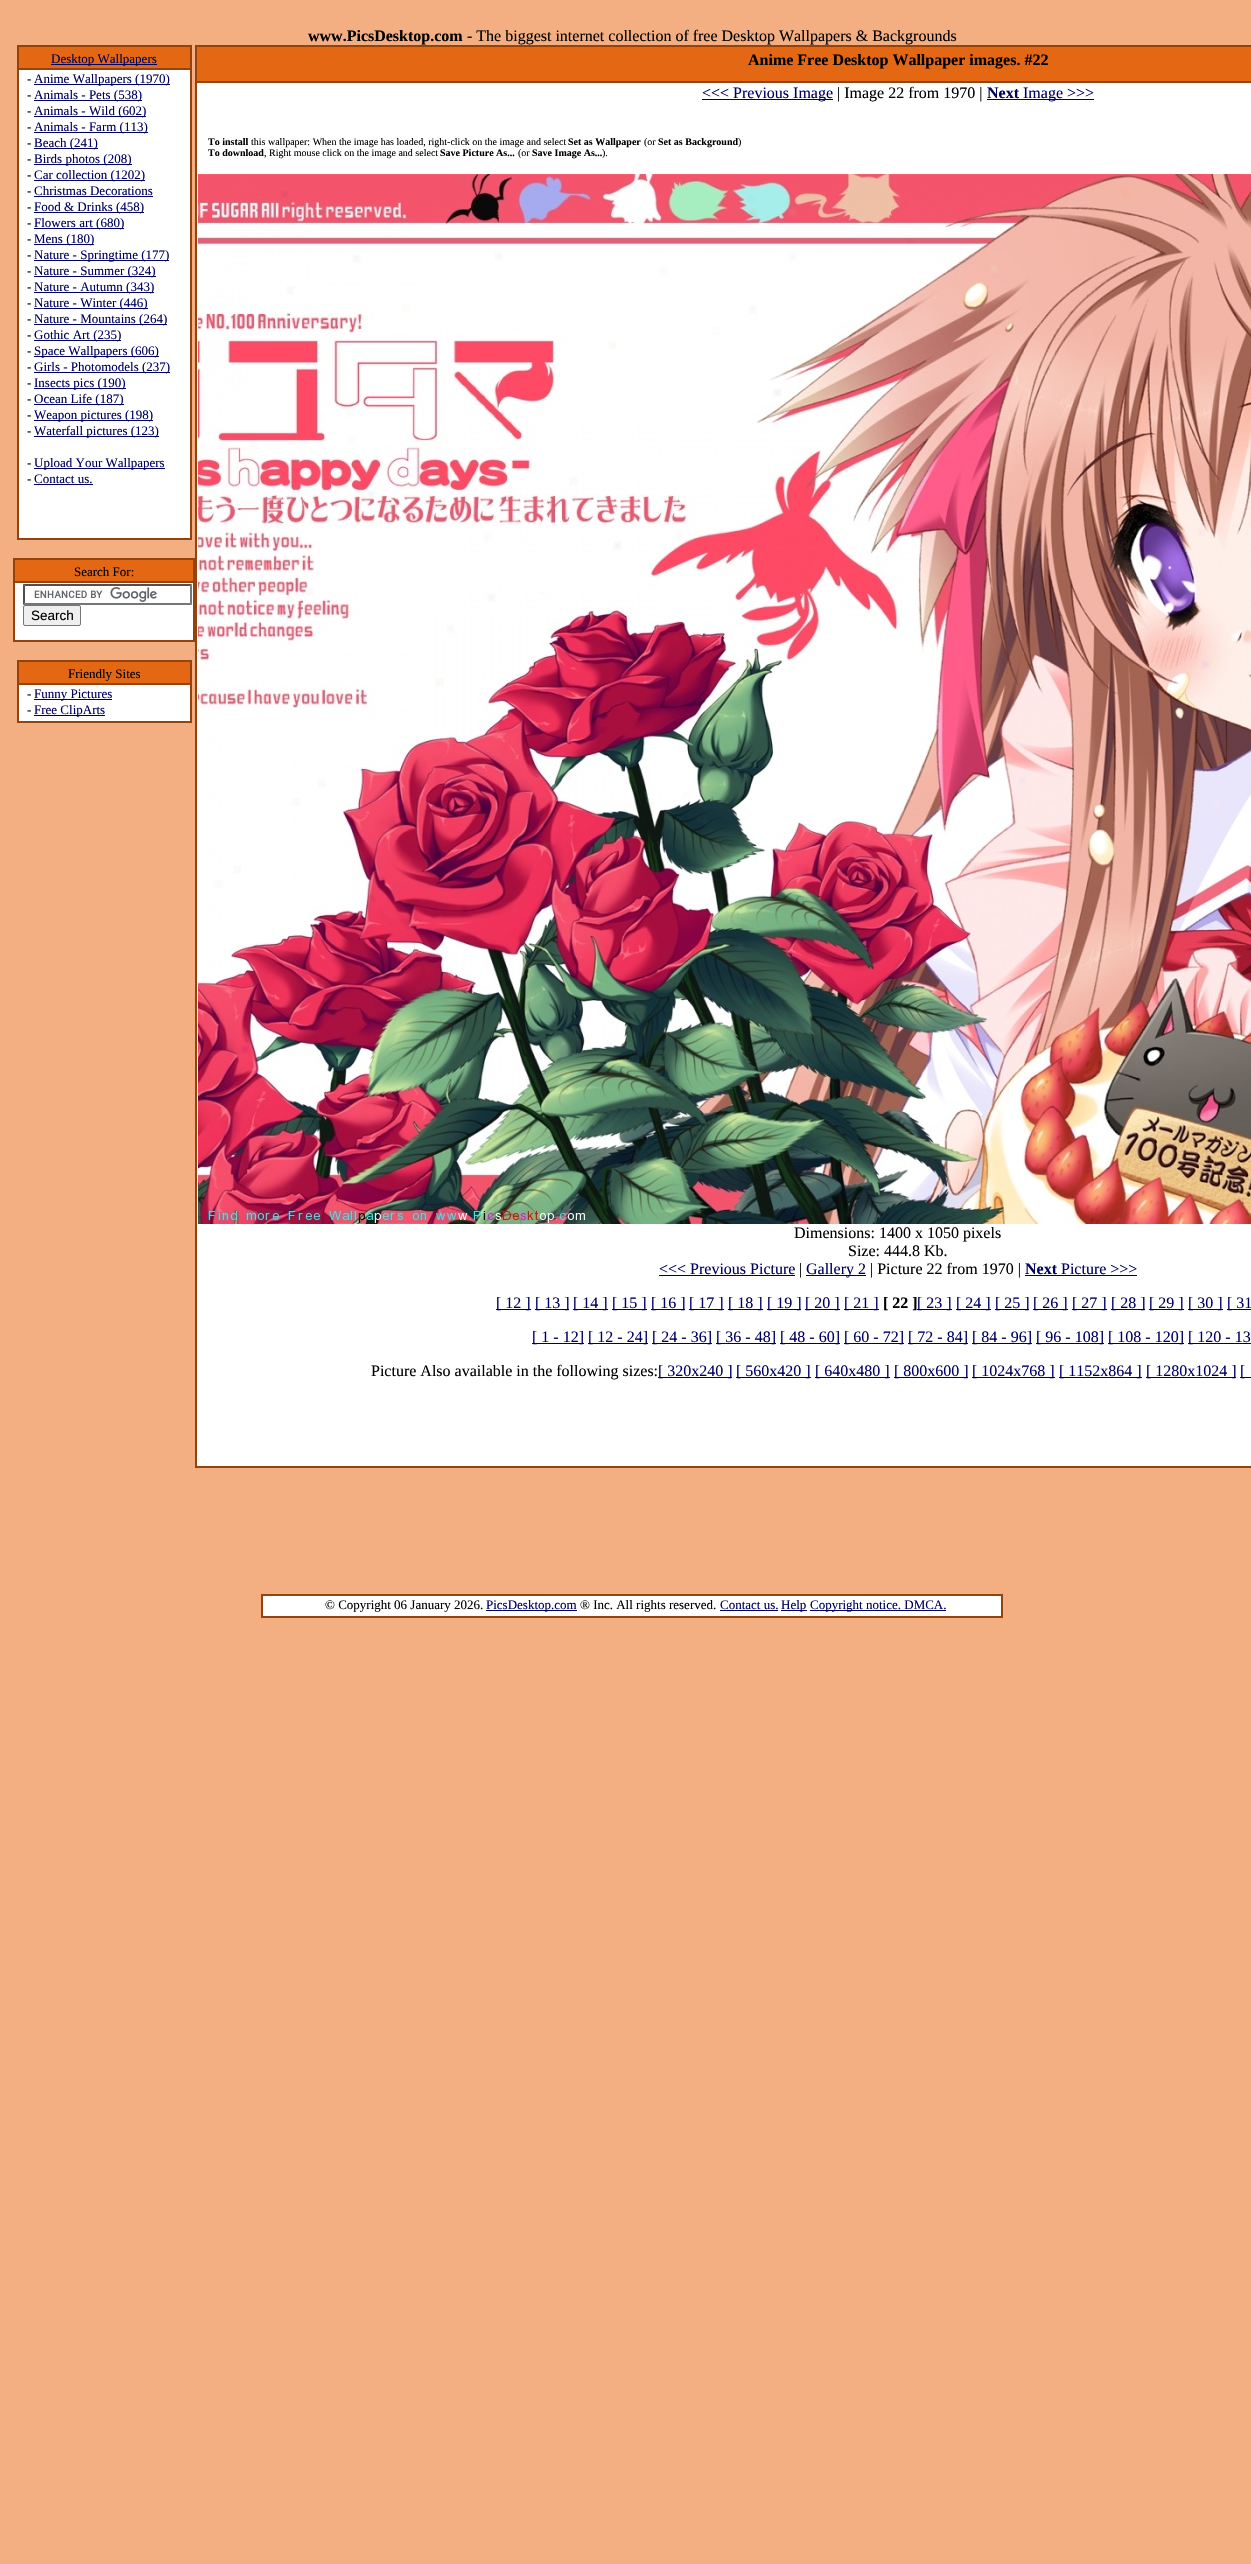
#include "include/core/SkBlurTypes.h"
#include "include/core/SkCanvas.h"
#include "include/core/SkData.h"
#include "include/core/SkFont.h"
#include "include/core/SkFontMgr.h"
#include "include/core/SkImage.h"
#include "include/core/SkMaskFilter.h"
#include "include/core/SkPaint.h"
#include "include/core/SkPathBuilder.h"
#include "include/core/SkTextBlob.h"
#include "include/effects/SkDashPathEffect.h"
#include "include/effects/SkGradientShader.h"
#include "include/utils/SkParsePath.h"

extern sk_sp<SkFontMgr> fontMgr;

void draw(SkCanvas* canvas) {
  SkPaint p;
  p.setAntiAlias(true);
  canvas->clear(SkColorSetRGB(243, 174, 129));
  p.setColor(SkColorSetRGB(146, 67, 14));
  canvas->drawRect(SkRect::MakeLTRB(17, 45, 192, 540), p);
  p.setColor(SkColorSetRGB(228, 103, 20));
  canvas->drawRect(SkRect::MakeLTRB(19, 47, 190, 68), p);
  p.setColor(SkColorSetRGB(0, 0, 98));
  canvas->drawRect(SkRect::MakeLTRB(51, 64, 157, 65), p);
  p.setColor(SK_ColorWHITE);
  canvas->drawRect(SkRect::MakeLTRB(19, 70, 190, 538), p);
  p.setColor(SkColorSetRGB(0, 0, 98));
  canvas->drawRect(SkRect::MakeLTRB(34, 84, 170, 85), p);
  canvas->drawRect(SkRect::MakeLTRB(34, 100, 142, 101), p);
  canvas->drawRect(SkRect::MakeLTRB(34, 116, 146, 117), p);
  canvas->drawRect(SkRect::MakeLTRB(34, 132, 148, 133), p);
  canvas->drawRect(SkRect::MakeLTRB(34, 148, 98, 149), p);
  canvas->drawRect(SkRect::MakeLTRB(34, 164, 132, 165), p);
  canvas->drawRect(SkRect::MakeLTRB(34, 180, 145, 181), p);
  canvas->drawRect(SkRect::MakeLTRB(34, 196, 153, 197), p);
  canvas->drawRect(SkRect::MakeLTRB(34, 212, 144, 213), p);
  canvas->drawRect(SkRect::MakeLTRB(34, 228, 124, 229), p);
  canvas->drawRect(SkRect::MakeLTRB(34, 244, 94, 245), p);
  canvas->drawRect(SkRect::MakeLTRB(34, 260, 169, 261), p);
  canvas->drawRect(SkRect::MakeLTRB(34, 276, 156, 277), p);
  canvas->drawRect(SkRect::MakeLTRB(34, 292, 154, 293), p);
  canvas->drawRect(SkRect::MakeLTRB(34, 308, 148, 309), p);
  canvas->drawRect(SkRect::MakeLTRB(34, 324, 167, 325), p);
  canvas->drawRect(SkRect::MakeLTRB(34, 340, 121, 341), p);
  canvas->drawRect(SkRect::MakeLTRB(34, 356, 159, 357), p);
  canvas->drawRect(SkRect::MakeLTRB(34, 372, 170, 373), p);
  canvas->drawRect(SkRect::MakeLTRB(34, 388, 126, 389), p);
  canvas->drawRect(SkRect::MakeLTRB(34, 404, 124, 405), p);
  canvas->drawRect(SkRect::MakeLTRB(34, 420, 153, 421), p);
  canvas->drawRect(SkRect::MakeLTRB(34, 436, 159, 437), p);
  canvas->drawRect(SkRect::MakeLTRB(34, 468, 165, 469), p);
  canvas->drawRect(SkRect::MakeLTRB(34, 484, 93, 485), p);
  p.setColor(SkColorSetRGB(146, 67, 14));
  canvas->drawRect(SkRect::MakeLTRB(13, 558, 195, 642), p);
  p.setColor(SkColorSetRGB(228, 103, 20));
  canvas->drawRect(SkRect::MakeLTRB(15, 560, 193, 581), p);
  p.setColor(SK_ColorWHITE);
  canvas->drawRect(SkRect::MakeLTRB(15, 583, 193, 640), p);
  canvas->drawImageRect(SkImages::DeferredFromEncodedData(SkData::MakeFromFileName("images/1.png")), SkRect::MakeLTRB(34, 587, 157, 602), SkSamplingOptions());
  p.setColor(SkColorSetRGB(79, 79, 79));
  canvas->drawPath(SkPathBuilder().moveTo(23, 584).lineTo(192, 584).lineTo(190, 586).lineTo(25, 586).close().detach(), p);
  p.setColor(SkColorSetRGB(118, 118, 118));
  canvas->drawPath(SkPathBuilder().moveTo(192, 584).lineTo(192, 605).lineTo(190, 603).lineTo(190, 586).close().detach(), p);
  canvas->drawPath(SkPathBuilder().moveTo(192, 605).lineTo(23, 605).lineTo(25, 603).lineTo(190, 603).close().detach(), p);
  p.setColor(SkColorSetRGB(79, 79, 79));
  canvas->drawPath(SkPathBuilder().moveTo(23, 605).lineTo(23, 584).lineTo(25, 586).lineTo(25, 603).close().detach(), p);
  p.setColor(SkColorSetRGB(239, 239, 239));
  canvas->drawRoundRect(SkRect::MakeLTRB(23.5f, 605.5f, 80.5f, 625.5f), 1.5f, 1.5f, p);
  p.setStyle(SkPaint::kStroke_Style);
  p.setStrokeWidth(1);
  p.setColor(SkColorSetRGB(118, 118, 118));
  canvas->drawRoundRect(SkRect::MakeLTRB(23.5f, 605.5f, 80.5f, 625.5f), 1.5f, 1.5f, p);
  p.setStyle(SkPaint::kFill_Style);
  p.setColor(SkColorSetRGB(146, 67, 14));
  canvas->drawRect(SkRect::MakeLTRB(17, 660, 192, 723), p);
  p.setColor(SkColorSetRGB(228, 103, 20));
  canvas->drawRect(SkRect::MakeLTRB(19, 662, 190, 683), p);
  p.setColor(SK_ColorWHITE);
  canvas->drawRect(SkRect::MakeLTRB(19, 685, 190, 721), p);
  p.setColor(SkColorSetRGB(0, 0, 98));
  canvas->drawRect(SkRect::MakeLTRB(34, 699, 112, 700), p);
  canvas->drawRect(SkRect::MakeLTRB(34, 715, 105, 716), p);
  p.setColor(SkColorSetRGB(146, 67, 14));
  canvas->drawRect(SkRect::MakeLTRB(195, 45, 1251, 1468), p);
  p.setColor(SkColorSetRGB(228, 103, 20));
  canvas->drawRect(SkRect::MakeLTRB(197, 47, 1251, 81), p);
  p.setColor(SK_ColorWHITE);
  canvas->drawRect(SkRect::MakeLTRB(197, 83, 1251, 1466), p);
  p.setColor(SkColorSetRGB(0, 0, 98));
  canvas->drawRect(SkRect::MakeLTRB(702, 99, 833, 100), p);
  canvas->drawRect(SkRect::MakeLTRB(987, 99, 1094, 100), p);
  canvas->drawImageRect(SkImages::DeferredFromEncodedData(SkData::MakeFromFileName("images/2.png")), SkRect::MakeLTRB(198, 174, 1251, 1224), SkSamplingOptions());
  canvas->drawRect(SkRect::MakeLTRB(659, 1275, 795, 1276), p);
  canvas->drawRect(SkRect::MakeLTRB(806, 1275, 866, 1276), p);
  canvas->drawRect(SkRect::MakeLTRB(1025, 1275, 1137, 1276), p);
  canvas->drawRect(SkRect::MakeLTRB(496, 1309, 531, 1310), p);
  canvas->drawRect(SkRect::MakeLTRB(535, 1309, 569, 1310), p);
  canvas->drawRect(SkRect::MakeLTRB(573, 1309, 608, 1310), p);
  canvas->drawRect(SkRect::MakeLTRB(612, 1309, 647, 1310), p);
  canvas->drawRect(SkRect::MakeLTRB(651, 1309, 685, 1310), p);
  canvas->drawRect(SkRect::MakeLTRB(689, 1309, 724, 1310), p);
  canvas->drawRect(SkRect::MakeLTRB(728, 1309, 763, 1310), p);
  canvas->drawRect(SkRect::MakeLTRB(767, 1309, 801, 1310), p);
  canvas->drawRect(SkRect::MakeLTRB(805, 1309, 840, 1310), p);
  canvas->drawRect(SkRect::MakeLTRB(844, 1309, 879, 1310), p);
  canvas->drawRect(SkRect::MakeLTRB(917, 1309, 952, 1310), p);
  canvas->drawRect(SkRect::MakeLTRB(956, 1309, 991, 1310), p);
  canvas->drawRect(SkRect::MakeLTRB(995, 1309, 1029, 1310), p);
  canvas->drawRect(SkRect::MakeLTRB(1033, 1309, 1068, 1310), p);
  canvas->drawRect(SkRect::MakeLTRB(1072, 1309, 1107, 1310), p);
  canvas->drawRect(SkRect::MakeLTRB(1111, 1309, 1145, 1310), p);
  canvas->drawRect(SkRect::MakeLTRB(1149, 1309, 1184, 1310), p);
  canvas->drawRect(SkRect::MakeLTRB(1188, 1309, 1223, 1310), p);
  canvas->drawRect(SkRect::MakeLTRB(1227, 1309, 1251, 1310), p);
  canvas->drawRect(SkRect::MakeLTRB(532, 1343, 584, 1344), p);
  canvas->drawRect(SkRect::MakeLTRB(588, 1343, 648, 1344), p);
  canvas->drawRect(SkRect::MakeLTRB(652, 1343, 712, 1344), p);
  canvas->drawRect(SkRect::MakeLTRB(716, 1343, 776, 1344), p);
  canvas->drawRect(SkRect::MakeLTRB(780, 1343, 840, 1344), p);
  canvas->drawRect(SkRect::MakeLTRB(844, 1343, 904, 1344), p);
  canvas->drawRect(SkRect::MakeLTRB(908, 1343, 968, 1344), p);
  canvas->drawRect(SkRect::MakeLTRB(972, 1343, 1032, 1344), p);
  canvas->drawRect(SkRect::MakeLTRB(1036, 1343, 1104, 1344), p);
  canvas->drawRect(SkRect::MakeLTRB(1108, 1343, 1184, 1344), p);
  canvas->drawRect(SkRect::MakeLTRB(1188, 1343, 1251, 1344), p);
  canvas->drawRect(SkRect::MakeLTRB(658, 1377, 732, 1378), p);
  canvas->drawRect(SkRect::MakeLTRB(736, 1377, 811, 1378), p);
  canvas->drawRect(SkRect::MakeLTRB(815, 1377, 890, 1378), p);
  canvas->drawRect(SkRect::MakeLTRB(894, 1377, 968, 1378), p);
  canvas->drawRect(SkRect::MakeLTRB(972, 1377, 1055, 1378), p);
  canvas->drawRect(SkRect::MakeLTRB(1059, 1377, 1142, 1378), p);
  canvas->drawRect(SkRect::MakeLTRB(1146, 1377, 1236, 1378), p);
  canvas->drawRect(SkRect::MakeLTRB(1240, 1377, 1251, 1378), p);
  p.setColor(SkColorSetRGB(146, 67, 14));
  canvas->drawRect(SkRect::MakeLTRB(261, 1594, 1003, 1618), p);
  p.setColor(SK_ColorWHITE);
  canvas->drawRect(SkRect::MakeLTRB(263, 1596, 1001, 1616), p);
  p.setColor(SkColorSetRGB(0, 0, 98));
  canvas->drawRect(SkRect::MakeLTRB(486, 1610, 577, 1611), p);
  canvas->drawRect(SkRect::MakeLTRB(720, 1610, 778, 1611), p);
  canvas->drawRect(SkRect::MakeLTRB(781, 1610, 807, 1611), p);
  canvas->drawRect(SkRect::MakeLTRB(810, 1610, 946, 1611), p);
  SkFont font1(fontMgr->matchFamilyStyle("Liberation Serif", SkFontStyle::Bold()), 16);
  font1.setSubpixel(true);
  p.setColor(SK_ColorBLACK);
  canvas->drawString("www.PicsDesktop.com", 308, 41, font1, p);
  SkFont font2(fontMgr->matchFamilyStyle("Liberation Serif", SkFontStyle::Normal()), 16);
  font2.setSubpixel(true);
  canvas->drawString("- The biggest internet collection of free Desktop Wallpapers & Backgrounds", 467, 41, font2, p);
  SkFont font3(fontMgr->matchFamilyStyle("Liberation Serif", SkFontStyle::Normal()), 13);
  font3.setSubpixel(true);
  p.setColor(SkColorSetRGB(0, 0, 98));
  canvas->drawString("Desktop Wallpapers", 51, 63, font3, p);
  p.setColor(SK_ColorBLACK);
  canvas->drawString("-", 27, 83, font3, p);
  p.setColor(SkColorSetRGB(0, 0, 98));
  canvas->drawString("Anime Wallpapers (1970)", 34, 83, font3, p);
  p.setColor(SK_ColorBLACK);
  canvas->drawString("-", 27, 99, font3, p);
  p.setColor(SkColorSetRGB(0, 0, 98));
  canvas->drawString("Animals - Pets (538)", 34, 99, font3, p);
  p.setColor(SK_ColorBLACK);
  canvas->drawString("-", 27, 115, font3, p);
  p.setColor(SkColorSetRGB(0, 0, 98));
  canvas->drawString("Animals - Wild (602)", 34, 115, font3, p);
  p.setColor(SK_ColorBLACK);
  canvas->drawString("-", 27, 131, font3, p);
  p.setColor(SkColorSetRGB(0, 0, 98));
  canvas->drawString("Animals - Farm (113)", 34, 131, font3, p);
  p.setColor(SK_ColorBLACK);
  canvas->drawString("-", 27, 147, font3, p);
  p.setColor(SkColorSetRGB(0, 0, 98));
  canvas->drawString("Beach (241)", 34, 147, font3, p);
  p.setColor(SK_ColorBLACK);
  canvas->drawString("-", 27, 163, font3, p);
  p.setColor(SkColorSetRGB(0, 0, 98));
  canvas->drawString("Birds photos (208)", 34, 163, font3, p);
  p.setColor(SK_ColorBLACK);
  canvas->drawString("-", 27, 179, font3, p);
  p.setColor(SkColorSetRGB(0, 0, 98));
  canvas->drawString("Car collection (1202)", 34, 179, font3, p);
  p.setColor(SK_ColorBLACK);
  canvas->drawString("-", 27, 195, font3, p);
  p.setColor(SkColorSetRGB(0, 0, 98));
  canvas->drawString("Christmas Decorations", 34, 195, font3, p);
  p.setColor(SK_ColorBLACK);
  canvas->drawString("-", 27, 211, font3, p);
  p.setColor(SkColorSetRGB(0, 0, 98));
  canvas->drawString("Food & Drinks (458)", 34, 211, font3, p);
  p.setColor(SK_ColorBLACK);
  canvas->drawString("-", 27, 227, font3, p);
  p.setColor(SkColorSetRGB(0, 0, 98));
  canvas->drawString("Flowers art (680)", 34, 227, font3, p);
  p.setColor(SK_ColorBLACK);
  canvas->drawString("-", 27, 243, font3, p);
  p.setColor(SkColorSetRGB(0, 0, 98));
  canvas->drawString("Mens (180)", 34, 243, font3, p);
  p.setColor(SK_ColorBLACK);
  canvas->drawString("-", 27, 259, font3, p);
  p.setColor(SkColorSetRGB(0, 0, 98));
  canvas->drawString("Nature - Springtime (177)", 34, 259, font3, p);
  p.setColor(SK_ColorBLACK);
  canvas->drawString("-", 27, 275, font3, p);
  p.setColor(SkColorSetRGB(0, 0, 98));
  canvas->drawString("Nature - Summer (324)", 34, 275, font3, p);
  p.setColor(SK_ColorBLACK);
  canvas->drawString("-", 27, 291, font3, p);
  p.setColor(SkColorSetRGB(0, 0, 98));
  canvas->drawString("Nature - Autumn (343)", 34, 291, font3, p);
  p.setColor(SK_ColorBLACK);
  canvas->drawString("-", 27, 307, font3, p);
  p.setColor(SkColorSetRGB(0, 0, 98));
  canvas->drawString("Nature - Winter (446)", 34, 307, font3, p);
  p.setColor(SK_ColorBLACK);
  canvas->drawString("-", 27, 323, font3, p);
  p.setColor(SkColorSetRGB(0, 0, 98));
  canvas->drawString("Nature - Mountains (264)", 34, 323, font3, p);
  p.setColor(SK_ColorBLACK);
  canvas->drawString("-", 27, 339, font3, p);
  p.setColor(SkColorSetRGB(0, 0, 98));
  canvas->drawString("Gothic Art (235)", 34, 339, font3, p);
  p.setColor(SK_ColorBLACK);
  canvas->drawString("-", 27, 355, font3, p);
  p.setColor(SkColorSetRGB(0, 0, 98));
  canvas->drawString("Space Wallpapers (606)", 34, 355, font3, p);
  p.setColor(SK_ColorBLACK);
  canvas->drawString("-", 27, 371, font3, p);
  p.setColor(SkColorSetRGB(0, 0, 98));
  canvas->drawString("Girls - Photomodels (237)", 34, 371, font3, p);
  p.setColor(SK_ColorBLACK);
  canvas->drawString("-", 27, 387, font3, p);
  p.setColor(SkColorSetRGB(0, 0, 98));
  canvas->drawString("Insects pics (190)", 34, 387, font3, p);
  p.setColor(SK_ColorBLACK);
  canvas->drawString("-", 27, 403, font3, p);
  p.setColor(SkColorSetRGB(0, 0, 98));
  canvas->drawString("Ocean Life (187)", 34, 403, font3, p);
  p.setColor(SK_ColorBLACK);
  canvas->drawString("-", 27, 419, font3, p);
  p.setColor(SkColorSetRGB(0, 0, 98));
  canvas->drawString("Weapon pictures (198)", 34, 419, font3, p);
  p.setColor(SK_ColorBLACK);
  canvas->drawString("-", 27, 435, font3, p);
  p.setColor(SkColorSetRGB(0, 0, 98));
  canvas->drawString("Waterfall pictures (123)", 34, 435, font3, p);
  p.setColor(SK_ColorBLACK);
  canvas->drawString("-", 27, 467, font3, p);
  p.setColor(SkColorSetRGB(0, 0, 98));
  canvas->drawString("Upload Your Wallpapers", 34, 467, font3, p);
  p.setColor(SK_ColorBLACK);
  canvas->drawString("-", 27, 483, font3, p);
  p.setColor(SkColorSetRGB(0, 0, 98));
  canvas->drawString("Contact us.", 34, 483, font3, p);
  p.setColor(SK_ColorBLACK);
  canvas->drawString("Search For:", 74, 576, font3, p);
  SkFont font4(fontMgr->matchFamilyStyle("Liberation Sans", SkFontStyle::Normal()), 13.5f);
  font4.setSubpixel(true);
  canvas->drawString("Search", 31, 620, font4, p);
  canvas->drawString("Friendly Sites", 68, 678, font3, p);
  canvas->drawString("-", 27, 698, font3, p);
  p.setColor(SkColorSetRGB(0, 0, 98));
  canvas->drawString("Funny Pictures", 34, 698, font3, p);
  p.setColor(SK_ColorBLACK);
  canvas->drawString("-", 27, 714, font3, p);
  p.setColor(SkColorSetRGB(0, 0, 98));
  canvas->drawString("Free ClipArts", 34, 714, font3, p);
  p.setColor(SK_ColorBLACK);
  canvas->drawString("Anime Free Desktop Wallpaper images. #22", 748, 65, font1, p);
  p.setColor(SkColorSetRGB(0, 0, 98));
  canvas->drawString("<<< Previous Image", 702, 98, font2, p);
  p.setColor(SK_ColorBLACK);
  canvas->drawString("| Image 22 from 1970 |", 837, 98, font2, p);
  p.setColor(SkColorSetRGB(0, 0, 98));
  canvas->drawString("Next", 987, 98, font1, p);
  canvas->drawString("Image >>>", 1023, 98, font2, p);
  SkFont font5(fontMgr->matchFamilyStyle("Liberation Serif", SkFontStyle::Bold()), 10);
  font5.setSubpixel(true);
  p.setColor(SK_ColorBLACK);
  canvas->drawString("To install", 208, 145, font5, p);
  SkFont font6(fontMgr->matchFamilyStyle("Liberation Serif", SkFontStyle::Normal()), 10);
  font6.setSubpixel(true);
  canvas->drawString("this wallpaper: When the image has loaded, right-click on the image and select", 251, 145, font6, p);
  canvas->drawString("Set as Wallpaper", 568, 145, font5, p);
  canvas->drawString("(or", 644, 145, font6, p);
  canvas->drawString("Set as Background", 658, 145, font5, p);
  canvas->drawString(")", 738, 145, font6, p);
  canvas->drawString("To download", 208, 156, font5, p);
  canvas->drawString(", Right mouse click on the image and select", 264, 156, font6, p);
  canvas->drawString("Save Picture As...", 440, 156, font5, p);
  canvas->drawString("(or", 518, 156, font6, p);
  canvas->drawString("Save Image As...", 532, 156, font5, p);
  canvas->drawString(").", 602, 156, font6, p);
  canvas->drawString("Dimensions: 1400 x 1050 pixels", 794, 1238, font2, p);
  canvas->drawString("Size: 444.8 Kb.", 848, 1256, font2, p);
  p.setColor(SkColorSetRGB(0, 0, 98));
  canvas->drawString("<<< Previous Picture", 659, 1274, font2, p);
  p.setColor(SK_ColorBLACK);
  canvas->drawString("|", 799, 1274, font2, p);
  p.setColor(SkColorSetRGB(0, 0, 98));
  canvas->drawString("Gallery 2", 806, 1274, font2, p);
  p.setColor(SK_ColorBLACK);
  canvas->drawString("| Picture 22 from 1970 |", 870, 1274, font2, p);
  p.setColor(SkColorSetRGB(0, 0, 98));
  canvas->drawString("Next", 1025, 1274, font1, p);
  canvas->drawString("Picture >>>", 1061, 1274, font2, p);
  canvas->drawString("[ 12 ]", 496, 1308, font2, p);
  canvas->drawString("[ 13 ]", 535, 1308, font2, p);
  canvas->drawString("[ 14 ]", 573, 1308, font2, p);
  canvas->drawString("[ 15 ]", 612, 1308, font2, p);
  canvas->drawString("[ 16 ]", 651, 1308, font2, p);
  canvas->drawString("[ 17 ]", 689, 1308, font2, p);
  canvas->drawString("[ 18 ]", 728, 1308, font2, p);
  canvas->drawString("[ 19 ]", 767, 1308, font2, p);
  canvas->drawString("[ 20 ]", 805, 1308, font2, p);
  canvas->drawString("[ 21 ]", 844, 1308, font2, p);
  p.setColor(SK_ColorBLACK);
  canvas->drawString("[ 22 ]", 883, 1308, font1, p);
  p.setColor(SkColorSetRGB(0, 0, 98));
  canvas->drawString("[ 23 ]", 917, 1308, font2, p);
  canvas->drawString("[ 24 ]", 956, 1308, font2, p);
  canvas->drawString("[ 25 ]", 995, 1308, font2, p);
  canvas->drawString("[ 26 ]", 1033, 1308, font2, p);
  canvas->drawString("[ 27 ]", 1072, 1308, font2, p);
  canvas->drawString("[ 28 ]", 1111, 1308, font2, p);
  canvas->drawString("[ 29 ]", 1149, 1308, font2, p);
  canvas->drawString("[ 30 ]", 1188, 1308, font2, p);
  canvas->drawString("[ 31", 1227, 1308, font2, p);
  canvas->drawString("[ 1 - 12]", 532, 1342, font2, p);
  canvas->drawString("[ 12 - 24]", 588, 1342, font2, p);
  canvas->drawString("[ 24 - 36]", 652, 1342, font2, p);
  canvas->drawString("[ 36 - 48]", 716, 1342, font2, p);
  canvas->drawString("[ 48 - 60]", 780, 1342, font2, p);
  canvas->drawString("[ 60 - 72]", 844, 1342, font2, p);
  canvas->drawString("[ 72 - 84]", 908, 1342, font2, p);
  canvas->drawString("[ 84 - 96]", 972, 1342, font2, p);
  canvas->drawString("[ 96 - 108]", 1036, 1342, font2, p);
  canvas->drawString("[ 108 - 120]", 1108, 1342, font2, p);
  canvas->drawString("[ 120 - 13", 1188, 1342, font2, p);
  p.setColor(SK_ColorBLACK);
  canvas->drawString("Picture Also available in the following sizes:", 371, 1376, font2, p);
  p.setColor(SkColorSetRGB(0, 0, 98));
  canvas->drawString("[ 320x240 ]", 658, 1376, font2, p);
  canvas->drawString("[ 560x420 ]", 736, 1376, font2, p);
  canvas->drawString("[ 640x480 ]", 815, 1376, font2, p);
  canvas->drawString("[ 800x600 ]", 894, 1376, font2, p);
  canvas->drawString("[ 1024x768 ]", 972, 1376, font2, p);
  canvas->drawString("[ 1152x864 ]", 1059, 1376, font2, p);
  canvas->drawString("[ 1280x1024 ]", 1146, 1376, font2, p);
  canvas->drawString("[", 1240, 1376, font2, p);
  p.setColor(SK_ColorBLACK);
  canvas->drawString("© Copyright 06 January 2026.", 325, 1609, font3, p);
  p.setColor(SkColorSetRGB(0, 0, 98));
  canvas->drawString("PicsDesktop.com", 486, 1609, font3, p);
  p.setColor(SK_ColorBLACK);
  canvas->drawString("® Inc. All rights reserved.", 580, 1609, font3, p);
  p.setColor(SkColorSetRGB(0, 0, 98));
  canvas->drawString("Contact us.", 720, 1609, font3, p);
  canvas->drawString("Help", 781, 1609, font3, p);
  canvas->drawString("Copyright notice. DMCA.", 810, 1609, font3, p);
}
